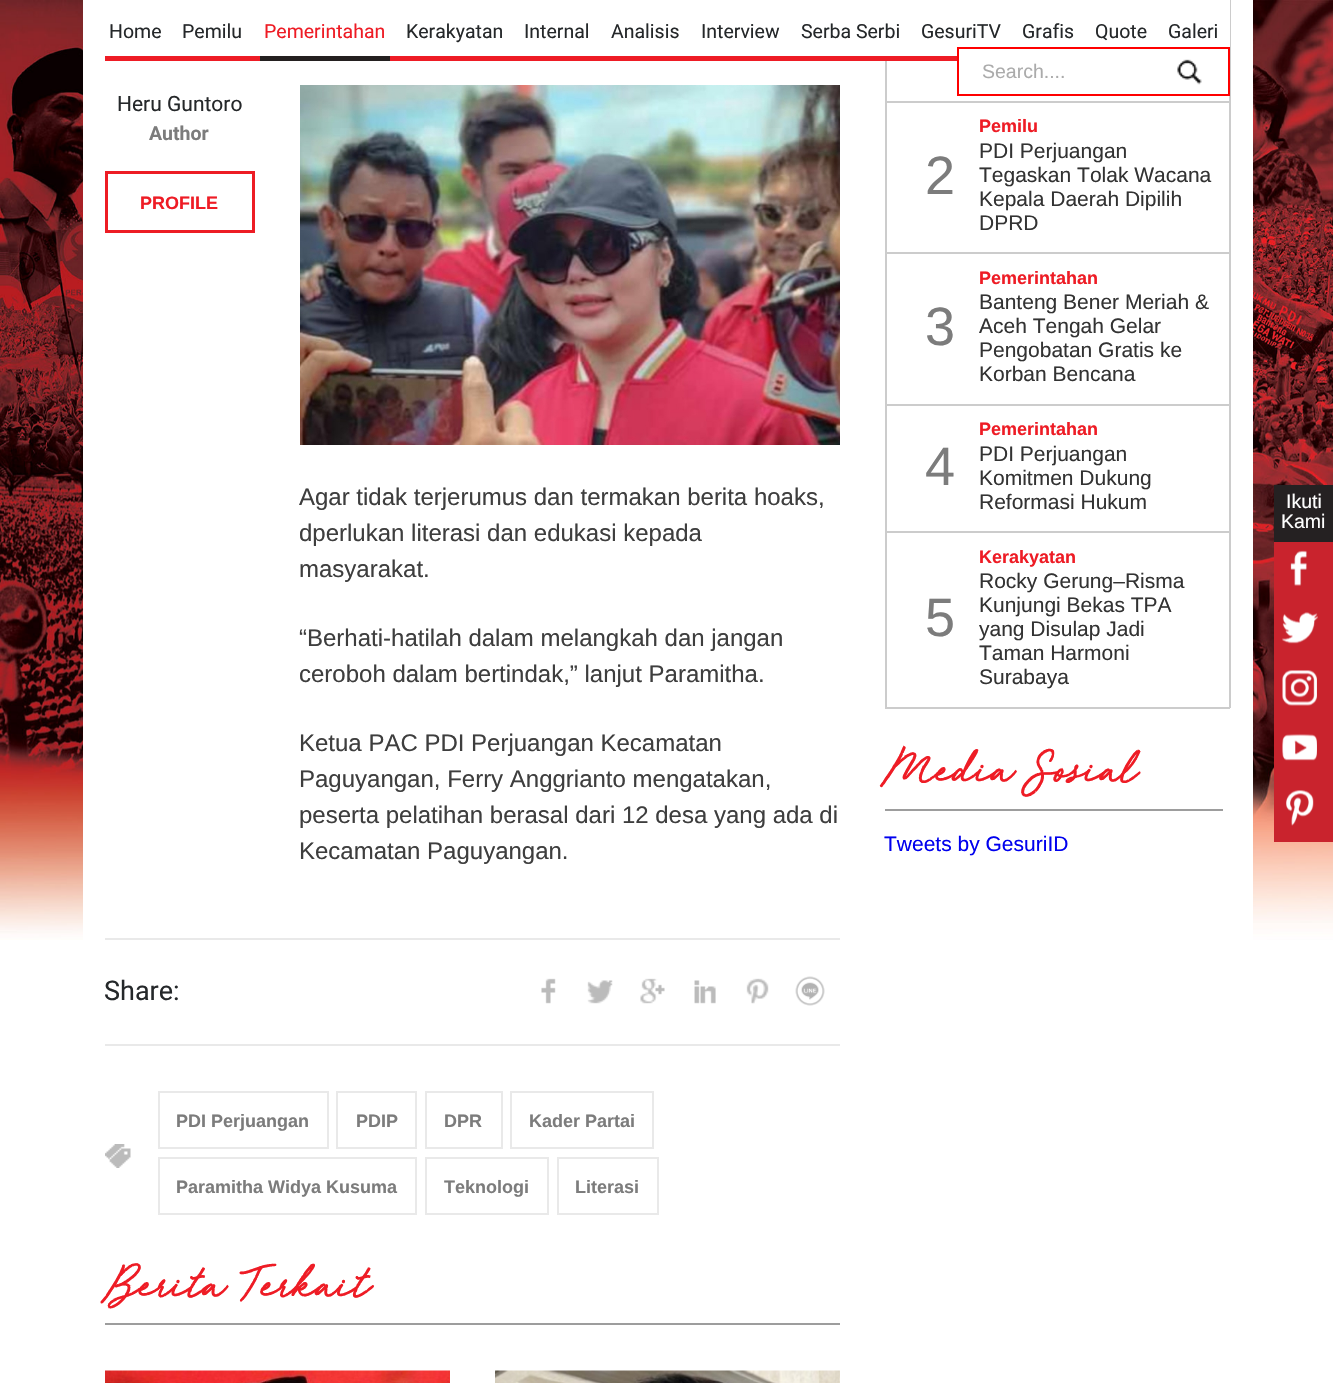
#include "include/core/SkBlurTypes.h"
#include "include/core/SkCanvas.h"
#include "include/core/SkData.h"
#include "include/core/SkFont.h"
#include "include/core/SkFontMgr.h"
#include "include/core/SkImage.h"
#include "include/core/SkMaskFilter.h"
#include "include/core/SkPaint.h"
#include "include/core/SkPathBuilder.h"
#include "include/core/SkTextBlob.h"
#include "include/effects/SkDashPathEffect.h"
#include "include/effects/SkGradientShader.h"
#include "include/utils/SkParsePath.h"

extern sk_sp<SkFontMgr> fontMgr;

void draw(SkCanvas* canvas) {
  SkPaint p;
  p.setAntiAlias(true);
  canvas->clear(SK_ColorWHITE);
  canvas->drawImageRect(SkImages::DeferredFromEncodedData(SkData::MakeFromFileName("images/1.png")), SkRect::MakeLTRB(0, 0, 1333, 940), SkSamplingOptions());
  p.setColor(SK_ColorWHITE);
  canvas->drawRect(SkRect::MakeLTRB(83, 0, 1253, 940), p);
  p.setColor(SkColorSetRGB(204, 204, 204));
  canvas->drawRect(SkRect::MakeLTRB(1229, 0, 1231, 102), p);
  p.setColor(SK_ColorWHITE);
  canvas->drawRect(SkRect::MakeLTRB(1229, 0, 1230, 56), p);
  p.setColor(SkColorSetRGB(238, 28, 37));
  canvas->drawRect(SkRect::MakeLTRB(105, 56, 957, 61), p);
  p.setColor(SkColorSetRGB(36, 32, 32));
  canvas->drawRect(SkRect::MakeLTRB(260, 56, 390, 61), p);
  p.setStyle(SkPaint::kStroke_Style);
  p.setStrokeWidth(2);
  p.setColor(SkColorSetRGB(255, 0, 0));
  canvas->drawRect(SkRect::MakeLTRB(958, 48, 1229, 95), p);
  canvas->drawImageRect(SkImages::DeferredFromEncodedData(SkData::MakeFromFileName("images/2.png")), SkRect::MakeLTRB(1177, 59, 1202, 85), SkSamplingOptions());
  p.setStrokeWidth(3);
  p.setColor(SkColorSetRGB(237, 28, 36));
  canvas->drawRect(SkRect::MakeLTRB(106.5f, 172.5f, 253.5f, 231.5f), p);
  canvas->drawImageRect(SkImages::DeferredFromEncodedData(SkData::MakeFromFileName("images/3.png")), SkRect::MakeLTRB(300, 85, 840, 445), SkSamplingOptions());
  p.setStyle(SkPaint::kFill_Style);
  p.setColor(SkColorSetRGB(233, 233, 233));
  canvas->drawRect(SkRect::MakeLTRB(105, 938, 840, 940), p);
  canvas->drawRect(SkRect::MakeLTRB(105, 1044, 840, 1046), p);
  canvas->drawImageRect(SkImages::DeferredFromEncodedData(SkData::MakeFromFileName("images/4.png")), SkRect::MakeLTRB(541, 978, 556, 1004), SkSamplingOptions());
  canvas->drawImageRect(SkImages::DeferredFromEncodedData(SkData::MakeFromFileName("images/5.png")), SkRect::MakeLTRB(587, 980, 613, 1004), SkSamplingOptions());
  canvas->drawImageRect(SkImages::DeferredFromEncodedData(SkData::MakeFromFileName("images/6.png")), SkRect::MakeLTRB(640, 978, 665, 1004), SkSamplingOptions());
  canvas->drawImageRect(SkImages::DeferredFromEncodedData(SkData::MakeFromFileName("images/7.png")), SkRect::MakeLTRB(694, 980, 716, 1004), SkSamplingOptions());
  canvas->drawImageRect(SkImages::DeferredFromEncodedData(SkData::MakeFromFileName("images/8.png")), SkRect::MakeLTRB(746, 978, 769, 1004), SkSamplingOptions());
  canvas->drawImageRect(SkImages::DeferredFromEncodedData(SkData::MakeFromFileName("images/9.png")), SkRect::MakeLTRB(795, 976, 825, 1006), SkSamplingOptions());
  canvas->drawImageRect(SkImages::DeferredFromEncodedData(SkData::MakeFromFileName("images/10.png")), SkRect::MakeLTRB(105, 1144, 131, 1168), SkSamplingOptions());
  p.setStyle(SkPaint::kStroke_Style);
  p.setStrokeWidth(2);
  canvas->drawRect(SkRect::MakeLTRB(159, 1092, 328, 1148), p);
  canvas->drawRect(SkRect::MakeLTRB(337, 1092, 416, 1148), p);
  canvas->drawRect(SkRect::MakeLTRB(426, 1092, 502, 1148), p);
  canvas->drawRect(SkRect::MakeLTRB(511, 1092, 653, 1148), p);
  canvas->drawRect(SkRect::MakeLTRB(159, 1158, 416, 1214), p);
  canvas->drawRect(SkRect::MakeLTRB(426, 1158, 548, 1214), p);
  canvas->drawRect(SkRect::MakeLTRB(558, 1158, 658, 1214), p);
  p.setStyle(SkPaint::kFill_Style);
  p.setColor(SkColorSetRGB(157, 157, 157));
  canvas->drawRect(SkRect::MakeLTRB(105, 1323, 840, 1325), p);
  canvas->drawImageRect(SkImages::DeferredFromEncodedData(SkData::MakeFromFileName("images/11.png")), SkRect::MakeLTRB(105, 1370, 450, 1383), SkSamplingOptions());
  canvas->drawImageRect(SkImages::DeferredFromEncodedData(SkData::MakeFromFileName("images/12.png")), SkRect::MakeLTRB(495, 1370, 840, 1383), SkSamplingOptions());
  p.setColor(SkColorSetRGB(204, 204, 204));
  canvas->drawRect(SkRect::MakeLTRB(885, 101, 1230, 103), p);
  canvas->drawRect(SkRect::MakeLTRB(885, 61, 887, 102), p);
  canvas->drawRect(SkRect::MakeLTRB(1229, 99, 1231, 254), p);
  canvas->drawRect(SkRect::MakeLTRB(885, 252, 1230, 254), p);
  canvas->drawRect(SkRect::MakeLTRB(885, 99, 887, 254), p);
  canvas->drawRect(SkRect::MakeLTRB(1229, 251, 1231, 405), p);
  canvas->drawRect(SkRect::MakeLTRB(885, 404, 1230, 406), p);
  canvas->drawRect(SkRect::MakeLTRB(885, 251, 887, 405), p);
  canvas->drawRect(SkRect::MakeLTRB(1229, 402, 1231, 533), p);
  canvas->drawRect(SkRect::MakeLTRB(885, 531, 1230, 533), p);
  canvas->drawRect(SkRect::MakeLTRB(885, 402, 887, 533), p);
  canvas->drawRect(SkRect::MakeLTRB(1229, 530, 1231, 708), p);
  canvas->drawRect(SkRect::MakeLTRB(885, 707, 1230, 709), p);
  canvas->drawRect(SkRect::MakeLTRB(885, 530, 887, 708), p);
  p.setColor(SkColorSetRGB(157, 157, 157));
  canvas->drawRect(SkRect::MakeLTRB(885, 809, 1223, 811), p);
  p.setColor(SkColorSetRGB(37, 33, 34));
  canvas->drawRect(SkRect::MakeLTRB(1274, 485, 1333, 542), p);
  p.setColor(SkColorSetRGB(201, 35, 45));
  canvas->drawRect(SkRect::MakeLTRB(1274, 542, 1333, 842), p);
  canvas->drawImageRect(SkImages::DeferredFromEncodedData(SkData::MakeFromFileName("images/13.png")), SkRect::MakeLTRB(1290, 550, 1307, 586), SkSamplingOptions());
  canvas->drawImageRect(SkImages::DeferredFromEncodedData(SkData::MakeFromFileName("images/14.png")), SkRect::MakeLTRB(1282, 612, 1318, 644), SkSamplingOptions());
  canvas->drawImageRect(SkImages::DeferredFromEncodedData(SkData::MakeFromFileName("images/15.png")), SkRect::MakeLTRB(1282, 670, 1317, 706), SkSamplingOptions());
  canvas->drawImageRect(SkImages::DeferredFromEncodedData(SkData::MakeFromFileName("images/16.png")), SkRect::MakeLTRB(1282, 734, 1317, 761), SkSamplingOptions());
  canvas->drawImageRect(SkImages::DeferredFromEncodedData(SkData::MakeFromFileName("images/17.png")), SkRect::MakeLTRB(1286, 790, 1314, 826), SkSamplingOptions());
  SkFont font1(fontMgr->matchFamilyStyle("Roboto", SkFontStyle::Normal()), 19.5f);
  font1.setSubpixel(true);
  p.setColor(SkColorSetRGB(37, 40, 42));
  canvas->drawString("Home", 109, 38, font1, p);
  canvas->drawString("Pemilu", 182, 38, font1, p);
  p.setColor(SkColorSetRGB(238, 28, 37));
  canvas->drawString("Pemerintahan", 264, 38, font1, p);
  p.setColor(SkColorSetRGB(37, 40, 42));
  canvas->drawString("Kerakyatan", 406, 38, font1, p);
  canvas->drawString("Internal", 524, 38, font1, p);
  canvas->drawString("Analisis", 611, 38, font1, p);
  canvas->drawString("Interview", 701, 38, font1, p);
  canvas->drawString("Serba Serbi", 801, 38, font1, p);
  canvas->drawString("GesuriTV", 921, 38, font1, p);
  canvas->drawString("Grafis", 1022, 38, font1, p);
  canvas->drawString("Quote", 1095, 38, font1, p);
  canvas->drawString("Galeri", 1168, 38, font1, p);
  SkFont font2(fontMgr->matchFamilyStyle("Liberation Sans", SkFontStyle::Normal()), 19.5f);
  font2.setSubpixel(true);
  p.setColor(SkColorSetRGB(171, 171, 171));
  canvas->drawString("Search....", 982, 78, font2, p);
  SkFont font3(fontMgr->matchFamilyStyle("Roboto", SkFontStyle::Normal()), 21);
  font3.setSubpixel(true);
  p.setColor(SkColorSetRGB(37, 40, 42));
  canvas->drawString("Heru Guntoro", 117, 111, font3, p);
  SkFont font4(fontMgr->matchFamilyStyle("Roboto", SkFontStyle::Bold()), 19.5f);
  font4.setSubpixel(true);
  p.setColor(SkColorSetRGB(124, 124, 124));
  canvas->drawString("Author", 149, 140, font4, p);
  SkFont font5(fontMgr->matchFamilyStyle("Liberation Sans", SkFontStyle::Bold()), 18);
  font5.setSubpixel(true);
  p.setColor(SkColorSetRGB(238, 28, 37));
  canvas->drawString("PROFILE", 140, 209, font5, p);
  SkFont font6(fontMgr->matchFamilyStyle("Liberation Sans", SkFontStyle::Normal()), 24);
  font6.setSubpixel(true);
  p.setColor(SkColorSetRGB(62, 62, 62));
  canvas->drawString("Agar tidak terjerumus dan termakan berita hoaks,", 299, 505, font6, p);
  canvas->drawString("dperlukan literasi dan edukasi kepada", 299, 541, font6, p);
  canvas->drawString("masyarakat.", 299, 577, font6, p);
  canvas->drawString("“Berhati-hatilah dalam melangkah dan jangan", 299, 646, font6, p);
  canvas->drawString("ceroboh dalam bertindak,” lanjut Paramitha.", 299, 682, font6, p);
  canvas->drawString("Ketua PAC PDI Perjuangan Kecamatan", 299, 751, font6, p);
  canvas->drawString("Paguyangan, Ferry Anggrianto mengatakan,", 299, 787, font6, p);
  canvas->drawString("peserta pelatihan berasal dari 12 desa yang ada di", 299, 823, font6, p);
  canvas->drawString("Kecamatan Paguyangan.", 299, 859, font6, p);
  SkFont font7(fontMgr->matchFamilyStyle("Roboto", SkFontStyle::Normal()), 27);
  font7.setSubpixel(true);
  p.setColor(SkColorSetRGB(37, 40, 42));
  canvas->drawString("Share:", 104, 1000, font7, p);
  p.setColor(SkColorSetRGB(124, 124, 124));
  canvas->drawString("PDI Perjuangan", 176, 1127, font5, p);
  canvas->drawString("PDIP", 356, 1127, font5, p);
  canvas->drawString("DPR", 444, 1127, font5, p);
  canvas->drawString("Kader Partai", 529, 1127, font5, p);
  canvas->drawString("Paramitha Widya Kusuma", 176, 1193, font5, p);
  canvas->drawString("Teknologi", 444, 1193, font5, p);
  canvas->drawString("Literasi", 575, 1193, font5, p);
  SkFont font8(fontMgr->matchFamilyStyle("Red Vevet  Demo", SkFontStyle::Bold()), 40.5f);
  font8.setSubpixel(true);
  p.setColor(SkColorSetRGB(238, 28, 37));
  canvas->drawString("Berita Terkait", 104, 1294, font8, p);
  SkFont font9(fontMgr->matchFamilyStyle("Liberation Sans", SkFontStyle::Normal()), 54);
  font9.setSubpixel(true);
  p.setColor(SkColorSetRGB(124, 124, 124));
  canvas->drawString("2", 925, 194, font9, p);
  p.setColor(SkColorSetRGB(238, 28, 37));
  canvas->drawString("Pemilu", 979, 132, font5, p);
  SkFont font10(fontMgr->matchFamilyStyle("Liberation Sans", SkFontStyle::Normal()), 21);
  font10.setSubpixel(true);
  p.setColor(SkColorSetRGB(51, 51, 51));
  canvas->drawString("PDI Perjuangan", 979, 158, font10, p);
  canvas->drawString("Tegaskan Tolak Wacana", 979, 182, font10, p);
  canvas->drawString("Kepala Daerah Dipilih", 979, 206, font10, p);
  canvas->drawString("DPRD", 979, 230, font10, p);
  p.setColor(SkColorSetRGB(124, 124, 124));
  canvas->drawString("3", 925, 345, font9, p);
  p.setColor(SkColorSetRGB(238, 28, 37));
  canvas->drawString("Pemerintahan", 979, 284, font5, p);
  p.setColor(SkColorSetRGB(51, 51, 51));
  canvas->drawString("Banteng Bener Meriah &", 979, 309, font10, p);
  canvas->drawString("Aceh Tengah Gelar", 979, 333, font10, p);
  canvas->drawString("Pengobatan Gratis ke", 979, 357, font10, p);
  canvas->drawString("Korban Bencana", 979, 381, font10, p);
  p.setColor(SkColorSetRGB(124, 124, 124));
  canvas->drawString("4", 925, 485, font9, p);
  p.setColor(SkColorSetRGB(238, 28, 37));
  canvas->drawString("Pemerintahan", 979, 435, font5, p);
  p.setColor(SkColorSetRGB(51, 51, 51));
  canvas->drawString("PDI Perjuangan", 979, 461, font10, p);
  canvas->drawString("Komitmen Dukung", 979, 485, font10, p);
  canvas->drawString("Reformasi Hukum", 979, 509, font10, p);
  p.setColor(SkColorSetRGB(124, 124, 124));
  canvas->drawString("5", 925, 636, font9, p);
  p.setColor(SkColorSetRGB(238, 28, 37));
  canvas->drawString("Kerakyatan", 979, 563, font5, p);
  p.setColor(SkColorSetRGB(51, 51, 51));
  canvas->drawString("Rocky Gerung–Risma", 979, 588, font10, p);
  canvas->drawString("Kunjungi Bekas TPA", 979, 612, font10, p);
  canvas->drawString("yang Disulap Jadi", 979, 636, font10, p);
  canvas->drawString("Taman Harmoni", 979, 660, font10, p);
  canvas->drawString("Surabaya", 979, 684, font10, p);
  p.setColor(SkColorSetRGB(238, 28, 37));
  canvas->drawString("Media Sosial", 884, 779, font8, p);
  p.setColor(SkColorSetRGB(0, 0, 238));
  canvas->drawString("Tweets by GesuriID", 884, 851, font10, p);
  p.setColor(SK_ColorWHITE);
  canvas->drawString("Ikuti", 1286, 508, font2, p);
  canvas->drawString("Kami", 1281, 528, font2, p);
}
